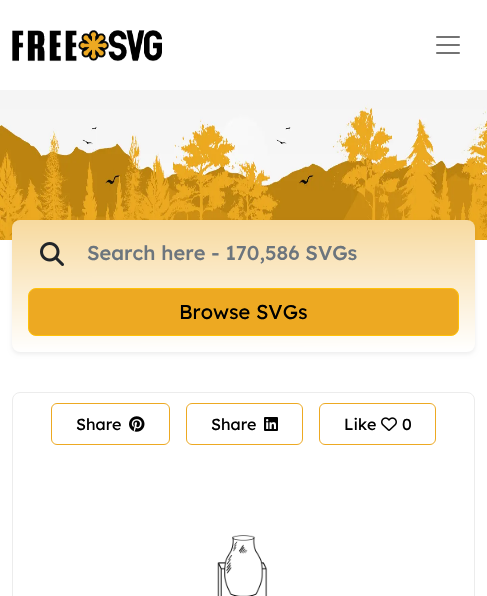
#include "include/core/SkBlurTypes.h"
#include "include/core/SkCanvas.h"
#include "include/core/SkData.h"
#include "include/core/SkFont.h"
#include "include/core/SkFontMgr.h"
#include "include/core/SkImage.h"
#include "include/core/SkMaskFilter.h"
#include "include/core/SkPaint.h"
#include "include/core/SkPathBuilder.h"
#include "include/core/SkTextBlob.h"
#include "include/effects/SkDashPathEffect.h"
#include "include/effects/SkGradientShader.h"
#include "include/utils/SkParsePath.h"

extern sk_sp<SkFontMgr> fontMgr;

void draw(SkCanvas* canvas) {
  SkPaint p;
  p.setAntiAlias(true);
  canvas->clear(SK_ColorWHITE);
  canvas->drawImageRect(SkImages::DeferredFromEncodedData(SkData::MakeFromFileName("images/1.png")), SkRect::MakeLTRB(12, 30, 162, 62), SkSamplingOptions());
  canvas->drawImageRect(SkImages::DeferredFromEncodedData(SkData::MakeFromFileName("images/2.png")), SkRect::MakeLTRB(436, 36, 460, 54), SkSamplingOptions());
  canvas->drawImageRect(SkImages::DeferredFromEncodedData(SkData::MakeFromFileName("images/3.png")), SkRect::MakeLTRB(0, 90, 487, 240), SkSamplingOptions());
  p.setColor(SkColorSetARGB(18, 0, 0, 0));
  p.setMaskFilter(SkMaskFilter::MakeBlur(kNormal_SkBlurStyle, 2));
  canvas->drawRoundRect(SkRect::MakeLTRB(12, 222, 475, 354), 8, 8, p);
  p.setMaskFilter(nullptr);
  {
    const SkColor colors[] = {SK_ColorWHITE, SkColorSetRGB(237, 169, 34)};
    const float stops[] = {0, 1};
    const SkPoint ends[] = {{244, 352}, {243, 48}};
    p.setShader(SkGradientShader::MakeLinear(ends, colors, stops, 2, SkTileMode::kClamp));
    p.setAlpha(255);
  }
  canvas->drawRoundRect(SkRect::MakeLTRB(12, 220, 475, 352), 8, 8, p);
  canvas->drawImageRect(SkImages::DeferredFromEncodedData(SkData::MakeFromFileName("images/4.png")), SkRect::MakeLTRB(40, 242, 64, 266), SkSamplingOptions());
  p.setShader(nullptr);
  p.setColor(SkColorSetRGB(237, 169, 34));
  canvas->drawRoundRect(SkRect::MakeLTRB(28.5f, 288.5f, 458.5f, 335.5f), 7.5f, 7.5f, p);
  p.setStyle(SkPaint::kStroke_Style);
  p.setStrokeWidth(1);
  p.setColor(SkColorSetRGB(255, 193, 7));
  canvas->drawRoundRect(SkRect::MakeLTRB(28.5f, 288.5f, 458.5f, 335.5f), 7.5f, 7.5f, p);
  p.setColor(SkColorSetRGB(236, 236, 236));
  canvas->drawRoundRect(SkRect::MakeLTRB(12.5f, 392.5f, 474.5f, 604.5f), 7.5f, 7.5f, p);
  p.setColor(SkColorSetRGB(237, 169, 34));
  canvas->drawRoundRect(SkRect::MakeLTRB(51.5f, 403.5f, 169.5f, 444.5f), 5.5f, 5.5f, p);
  canvas->drawImageRect(SkImages::DeferredFromEncodedData(SkData::MakeFromFileName("images/5.png")), SkRect::MakeLTRB(129, 416, 145, 432), SkSamplingOptions());
  canvas->drawRoundRect(SkRect::MakeLTRB(186.5f, 403.5f, 302.5f, 444.5f), 5.5f, 5.5f, p);
  canvas->drawImageRect(SkImages::DeferredFromEncodedData(SkData::MakeFromFileName("images/6.png")), SkRect::MakeLTRB(264, 417, 278, 431), SkSamplingOptions());
  canvas->drawRoundRect(SkRect::MakeLTRB(319.5f, 403.5f, 435.5f, 444.5f), 5.5f, 5.5f, p);
  canvas->drawImageRect(SkImages::DeferredFromEncodedData(SkData::MakeFromFileName("images/7.png")), SkRect::MakeLTRB(381, 417, 397, 431), SkSamplingOptions());
  canvas->drawImageRect(SkImages::DeferredFromEncodedData(SkData::MakeFromFileName("images/8.png")), SkRect::MakeLTRB(217, 535, 268, 596), SkSamplingOptions());
  SkFont font1(fontMgr->matchFamilyStyle("Lexend", SkFontStyle(500, SkFontStyle::kNormal_Width, SkFontStyle::kUpright_Slant)), 20);
  font1.setSubpixel(true);
  p.setStyle(SkPaint::kFill_Style);
  p.setColor(SkColorSetRGB(108, 117, 125));
  canvas->drawString("Search here - 170,586 SVGs", 87, 260, font1, p);
  SkFont font2(fontMgr->matchFamilyStyle("Lexend", SkFontStyle::Normal()), 20);
  font2.setSubpixel(true);
  p.setColor(SK_ColorBLACK);
  canvas->drawString("Browse SVGs", 179, 319, font2, p);
  SkFont font3(fontMgr->matchFamilyStyle("Lexend", SkFontStyle::Normal()), 16);
  font3.setSubpixel(true);
  canvas->drawString("Share", 76, 430, font3, p);
  canvas->drawString("Share", 211, 430, font3, p);
  canvas->drawString("Like", 344, 430, font3, p);
  canvas->drawString("0", 402, 430, font3, p);
}
